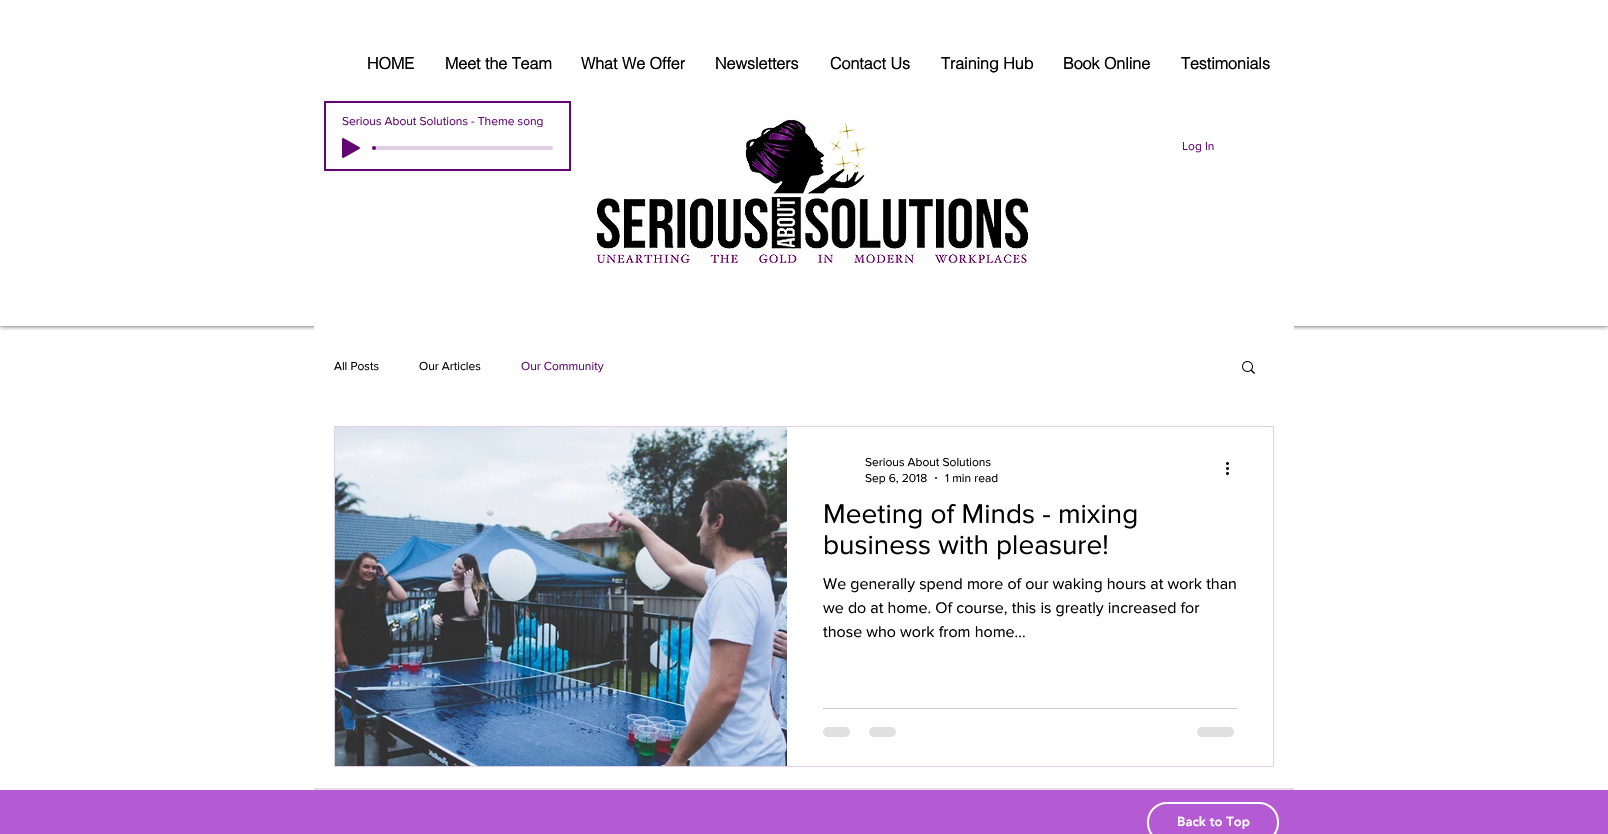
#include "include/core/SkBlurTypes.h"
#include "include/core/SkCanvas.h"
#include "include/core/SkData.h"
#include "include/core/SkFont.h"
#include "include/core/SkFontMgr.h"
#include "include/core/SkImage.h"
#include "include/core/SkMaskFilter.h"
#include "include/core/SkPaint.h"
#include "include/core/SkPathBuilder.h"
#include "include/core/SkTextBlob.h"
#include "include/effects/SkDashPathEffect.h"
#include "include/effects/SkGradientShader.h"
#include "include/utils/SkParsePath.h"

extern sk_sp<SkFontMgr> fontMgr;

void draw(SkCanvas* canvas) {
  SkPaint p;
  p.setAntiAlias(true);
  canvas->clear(SK_ColorWHITE);
  canvas->save();
  canvas->clipRect(SkRect::MakeLTRB(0, 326, 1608, 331));
  p.setColor(SkColorSetARGB(179, 0, 0, 0));
  p.setMaskFilter(SkMaskFilter::MakeBlur(kNormal_SkBlurStyle, 2.5f));
  canvas->drawRect(SkRect::MakeLTRB(0, 0, 1608, 326), p);
  p.setMaskFilter(nullptr);
  canvas->restore();
  p.setStyle(SkPaint::kStroke_Style);
  p.setStrokeWidth(2);
  p.setColor(SkColorSetRGB(98, 6, 116));
  canvas->drawRect(SkRect::MakeLTRB(325, 102, 570, 170), p);
  canvas->drawImageRect(SkImages::DeferredFromEncodedData(SkData::MakeFromFileName("images/1.png")), SkRect::MakeLTRB(342, 138, 360, 158), SkSamplingOptions());
  p.setStyle(SkPaint::kFill_Style);
  p.setColor(SkColorSetRGB(224, 205, 227));
  canvas->drawRoundRect(SkRect::MakeLTRB(374, 146, 553, 150), 2, 2, p);
  p.setColor(SkColorSetRGB(98, 6, 116));
  canvas->drawCircle(374, 148, 2, p);
  canvas->drawImageRect(SkImages::DeferredFromEncodedData(SkData::MakeFromFileName("images/2.png")), SkRect::MakeLTRB(596, 118, 1028, 265), SkSamplingOptions());
  p.setColor(SK_ColorWHITE);
  canvas->drawRect(SkRect::MakeLTRB(314, 326, 1294, 331), p);
  canvas->drawImageRect(SkImages::DeferredFromEncodedData(SkData::MakeFromFileName("images/3.png")), SkRect::MakeLTRB(1242, 361, 1255, 374), SkSamplingOptions());
  p.setStyle(SkPaint::kStroke_Style);
  p.setStrokeWidth(1);
  p.setColor(SkColorSetRGB(226, 209, 230));
  canvas->drawRect(SkRect::MakeLTRB(334.5f, 426.5f, 1273.5f, 766.5f), p);
  canvas->drawImageRect(SkImages::DeferredFromEncodedData(SkData::MakeFromFileName("images/4.png")), SkRect::MakeLTRB(335, 427, 787, 766), SkSamplingOptions());
  p.setStyle(SkPaint::kFill_Style);
  p.setColor(SK_ColorBLACK);
  canvas->drawCircle(936, 478, 1, p);
  canvas->drawImageRect(SkImages::DeferredFromEncodedData(SkData::MakeFromFileName("images/5.png")), SkRect::MakeLTRB(1226, 462, 1229, 475), SkSamplingOptions());
  p.setColor(SkColorSetRGB(204, 204, 204));
  canvas->drawRect(SkRect::MakeLTRB(823, 708, 1237, 709), p);
  p.setColor(SkColorSetRGB(224, 224, 224));
  canvas->drawRoundRect(SkRect::MakeLTRB(823, 727, 850, 737), 5, 5, p);
  canvas->drawRoundRect(SkRect::MakeLTRB(869, 727, 896, 737), 5, 5, p);
  canvas->drawRoundRect(SkRect::MakeLTRB(1197, 727, 1234, 737), 5, 5, p);
  p.setColor(SkColorSetRGB(180, 90, 211));
  canvas->drawRect(SkRect::MakeLTRB(0, 790, 1608, 834), p);
  p.setStyle(SkPaint::kStroke_Style);
  p.setStrokeWidth(2);
  p.setColor(SK_ColorWHITE);
  canvas->drawRoundRect(SkRect::MakeLTRB(1148, 803, 1278, 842), 19, 19, p);
  p.setStyle(SkPaint::kFill_Style);
  p.setColor(SkColorSetARGB(153, 216, 193, 221));
  canvas->drawRect(SkRect::MakeLTRB(314, 788, 1294, 790), p);
  SkFont font1(fontMgr->matchFamilyStyle("helvetica", SkFontStyle::Bold()), 16);
  font1.setSubpixel(true);
  p.setColor(SK_ColorBLACK);
  canvas->drawString("HOME", 367, 69, font1, p);
  canvas->drawString("Meet the Team", 445, 69, font1, p);
  canvas->drawString("What We Offer", 581, 69, font1, p);
  canvas->drawString("Newsletters", 715, 69, font1, p);
  canvas->drawString("Contact Us", 830, 69, font1, p);
  canvas->drawString("Training Hub", 941, 69, font1, p);
  canvas->drawString("Book Online", 1063, 69, font1, p);
  canvas->drawString("Testimonials", 1181, 69, font1, p);
  canvas->save();
  canvas->clipRect(SkRect::MakeLTRB(342, 115, 544, 127));
  SkFont font2(fontMgr->matchFamilyStyle("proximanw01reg", SkFontStyle::Normal()), 12);
  font2.setSubpixel(true);
  p.setColor(SkColorSetRGB(98, 6, 116));
  canvas->drawString("Serious About Solutions - Theme song", 342, 125, font2, p);
  canvas->restore();
  canvas->drawString("Log In", 1182, 150, font2, p);
  p.setColor(SK_ColorBLACK);
  canvas->drawString("All Posts", 334, 370, font2, p);
  canvas->drawString("Our Articles", 419, 370, font2, p);
  p.setColor(SkColorSetRGB(98, 6, 116));
  canvas->drawString("Our Community", 521, 370, font2, p);
  p.setColor(SK_ColorBLACK);
  canvas->drawString("Serious About Solutions", 865, 466, font2, p);
  canvas->drawString("Sep 6, 2018", 865, 482, font2, p);
  canvas->drawString("1 min read", 945, 482, font2, p);
  SkFont font3(fontMgr->matchFamilyStyle("proximanw01reg", SkFontStyle::Normal()), 28);
  font3.setSubpixel(true);
  canvas->drawString("Meeting of Minds - mixing", 823, 523, font3, p);
  canvas->drawString("business with pleasure!", 823, 554, font3, p);
  SkFont font4(fontMgr->matchFamilyStyle("proximanw01reg", SkFontStyle::Normal()), 16);
  font4.setSubpixel(true);
  canvas->drawString("We generally spend more of our waking hours at work than", 823, 589, font4, p);
  canvas->drawString("we do at home. Of course, this is greatly increased for", 823, 613, font4, p);
  canvas->drawString("those who work from home...", 823, 637, font4, p);
  SkFont font5(fontMgr->matchFamilyStyle("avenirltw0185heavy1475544", SkFontStyle(900, SkFontStyle::kNormal_Width, SkFontStyle::kUpright_Slant)), 13);
  font5.setSubpixel(true);
  p.setColor(SK_ColorWHITE);
  canvas->drawString("Back to Top", 1177, 826, font5, p);
}
